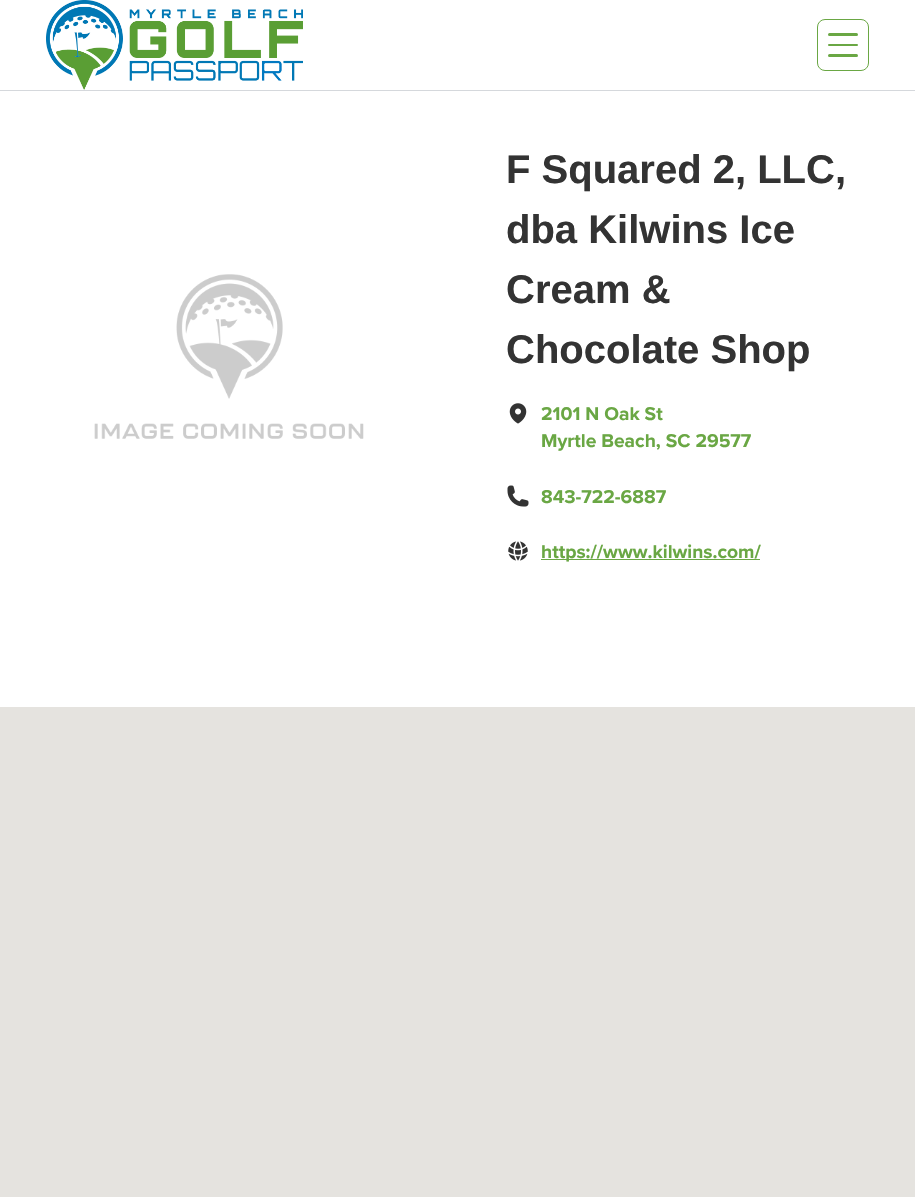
#include "include/core/SkBlurTypes.h"
#include "include/core/SkCanvas.h"
#include "include/core/SkData.h"
#include "include/core/SkFont.h"
#include "include/core/SkFontMgr.h"
#include "include/core/SkImage.h"
#include "include/core/SkMaskFilter.h"
#include "include/core/SkPaint.h"
#include "include/core/SkPathBuilder.h"
#include "include/core/SkTextBlob.h"
#include "include/effects/SkDashPathEffect.h"
#include "include/effects/SkGradientShader.h"
#include "include/utils/SkParsePath.h"

extern sk_sp<SkFontMgr> fontMgr;

void draw(SkCanvas* canvas) {
  SkPaint p;
  p.setAntiAlias(true);
  canvas->clear(SK_ColorWHITE);
  p.setColor(SkColorSetRGB(213, 216, 220));
  canvas->drawRect(SkRect::MakeLTRB(0, 90, 915, 91), p);
  canvas->drawImageRect(SkImages::DeferredFromEncodedData(SkData::MakeFromFileName("images/1.png")), SkRect::MakeLTRB(46, 0, 303, 90), SkSamplingOptions());
  p.setStyle(SkPaint::kStroke_Style);
  p.setStrokeWidth(1);
  p.setColor(SkColorSetRGB(106, 167, 68));
  canvas->drawRoundRect(SkRect::MakeLTRB(817.5f, 19.5f, 868.5f, 70.5f), 7.5f, 7.5f, p);
  p.setStyle(SkPaint::kFill_Style);
  canvas->drawRoundRect(SkRect::MakeLTRB(828, 33, 858, 36), 1.5f, 1.5f, p);
  canvas->drawRoundRect(SkRect::MakeLTRB(828, 44, 858, 46), 1, 1, p);
  canvas->drawRoundRect(SkRect::MakeLTRB(828, 54, 858, 57), 1.5f, 1.5f, p);
  canvas->drawImageRect(SkImages::DeferredFromEncodedData(SkData::MakeFromFileName("images/2.png")), SkRect::MakeLTRB(94, 274, 364, 439), SkSamplingOptions());
  canvas->drawImageRect(SkImages::DeferredFromEncodedData(SkData::MakeFromFileName("images/3.png")), SkRect::MakeLTRB(509, 403, 527, 424), SkSamplingOptions());
  canvas->drawImageRect(SkImages::DeferredFromEncodedData(SkData::MakeFromFileName("images/4.png")), SkRect::MakeLTRB(507, 485, 529, 507), SkSamplingOptions());
  canvas->drawImageRect(SkImages::DeferredFromEncodedData(SkData::MakeFromFileName("images/5.png")), SkRect::MakeLTRB(508, 541, 528, 561), SkSamplingOptions());
  canvas->drawRect(SkRect::MakeLTRB(541, 559, 760, 560), p);
  p.setColor(SkColorSetRGB(229, 227, 223));
  canvas->drawRect(SkRect::MakeLTRB(0, 707, 915, 1197), p);
  SkFont font1(fontMgr->matchFamilyStyle("Liberation Sans", SkFontStyle::Bold()), 40);
  font1.setSubpixel(true);
  p.setColor(SkColorSetRGB(51, 51, 51));
  canvas->drawString("F Squared 2, LLC,", 506, 183, font1, p);
  canvas->drawString("dba Kilwins Ice", 506, 243, font1, p);
  canvas->drawString("Cream &", 506, 303, font1, p);
  canvas->drawString("Chocolate Shop", 506, 363, font1, p);
  SkFont font2(fontMgr->matchFamilyStyle("Proxima Nova", SkFontStyle::Bold()), 19.25f);
  font2.setSubpixel(true);
  p.setColor(SkColorSetRGB(106, 167, 68));
  canvas->drawString("2101 N Oak St", 541, 420, font2, p);
  canvas->drawString("Myrtle Beach, SC 29577", 541, 447, font2, p);
  canvas->drawString("843-722-6887", 541, 503, font2, p);
  canvas->drawString("https://www.kilwins.com/", 541, 558, font2, p);
}
